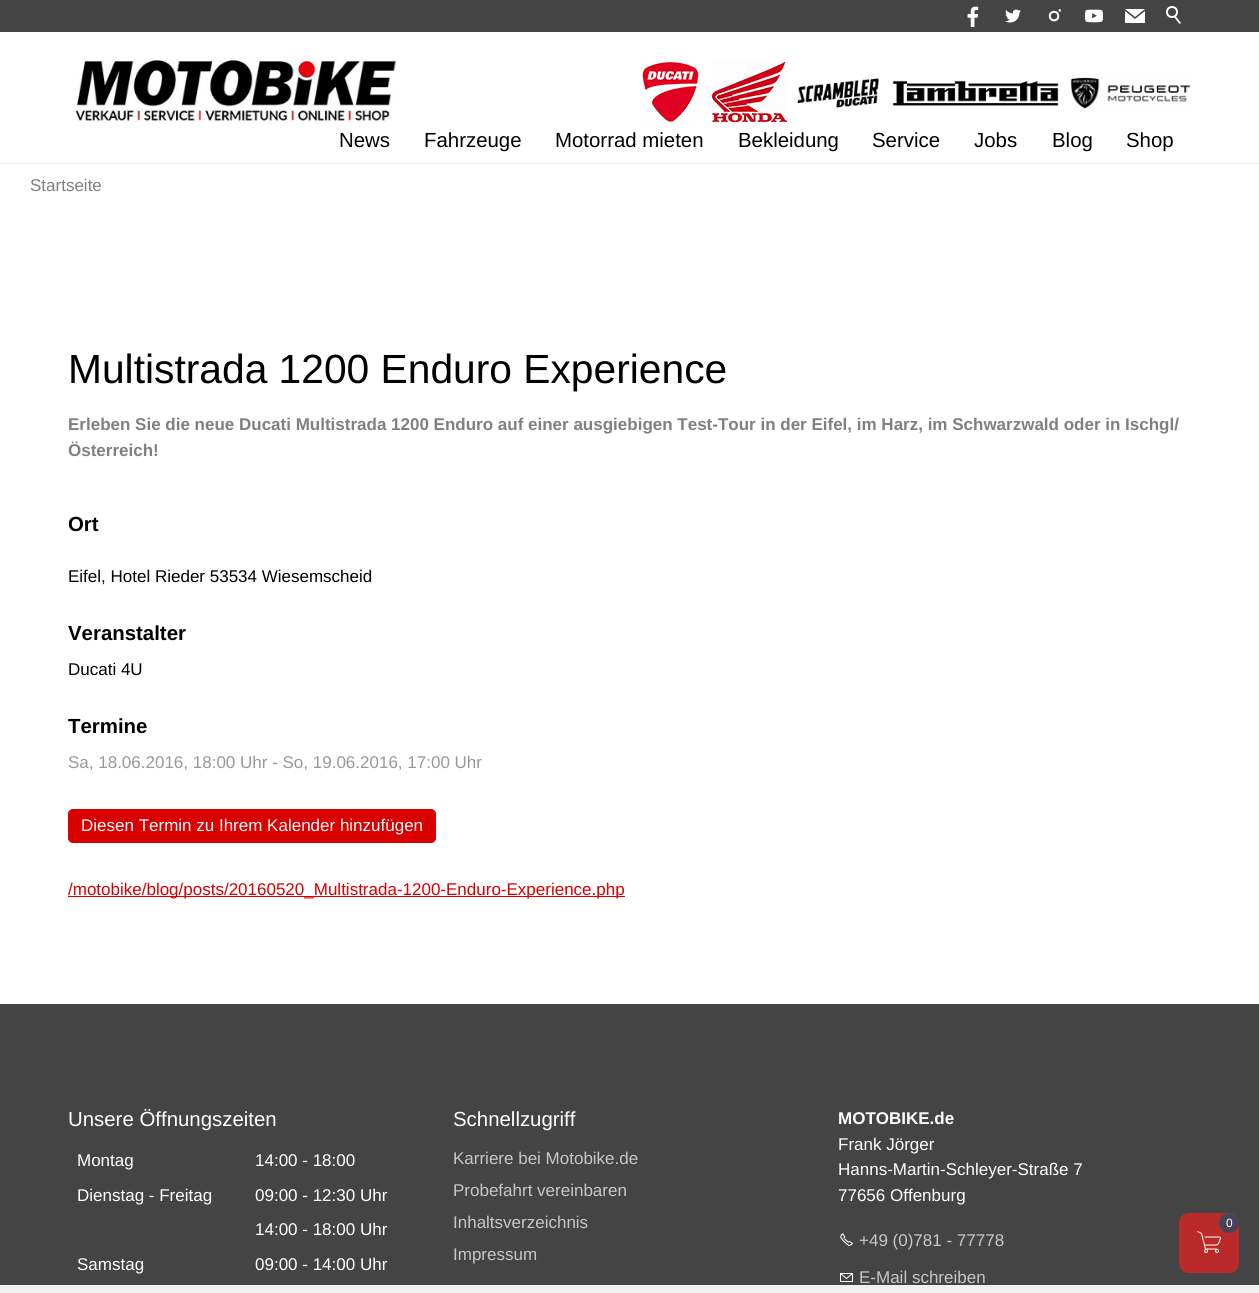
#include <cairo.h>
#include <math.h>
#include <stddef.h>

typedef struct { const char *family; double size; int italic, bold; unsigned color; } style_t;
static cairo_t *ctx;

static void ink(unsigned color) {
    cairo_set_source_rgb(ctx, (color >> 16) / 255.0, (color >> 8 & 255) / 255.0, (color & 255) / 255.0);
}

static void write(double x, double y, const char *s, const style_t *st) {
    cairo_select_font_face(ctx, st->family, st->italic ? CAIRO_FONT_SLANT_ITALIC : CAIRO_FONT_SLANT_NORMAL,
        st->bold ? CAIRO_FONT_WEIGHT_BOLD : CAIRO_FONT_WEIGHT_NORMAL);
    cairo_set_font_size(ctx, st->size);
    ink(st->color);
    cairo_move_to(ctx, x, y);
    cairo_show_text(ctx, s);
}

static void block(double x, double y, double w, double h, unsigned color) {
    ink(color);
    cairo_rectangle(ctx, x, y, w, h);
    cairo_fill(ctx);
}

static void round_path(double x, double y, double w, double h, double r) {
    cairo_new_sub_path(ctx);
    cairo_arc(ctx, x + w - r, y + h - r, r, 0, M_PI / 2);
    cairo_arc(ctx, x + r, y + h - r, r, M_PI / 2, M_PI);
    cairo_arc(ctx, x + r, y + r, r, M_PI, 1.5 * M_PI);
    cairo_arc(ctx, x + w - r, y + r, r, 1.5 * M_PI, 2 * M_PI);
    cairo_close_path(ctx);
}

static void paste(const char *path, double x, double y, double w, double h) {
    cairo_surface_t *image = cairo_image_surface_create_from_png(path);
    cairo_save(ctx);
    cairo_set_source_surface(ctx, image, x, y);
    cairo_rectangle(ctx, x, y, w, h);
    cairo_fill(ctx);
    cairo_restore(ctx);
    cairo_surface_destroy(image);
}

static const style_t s1 = {"Liberation Sans", 20.4, 0, 0, 0x000000};
static const style_t s2 = {"Liberation Sans", 17, 0, 0, 0x808080};
static const style_t s3 = {"Liberation Sans", 40.75, 0, 0, 0x000000};
static const style_t s4 = {"Liberation Sans", 17, 0, 1, 0x808080};
static const style_t s5 = {"Liberation Sans", 20.4, 0, 1, 0x000000};
static const style_t s6 = {"Liberation Sans", 17, 0, 0, 0x000000};
static const style_t s7 = {"Liberation Sans", 17, 0, 0, 0x999999};
static const style_t s8 = {"Liberation Sans", 17, 0, 0, 0xffffff};
static const style_t s9 = {"Liberation Sans", 17, 0, 0, 0xd80000};
static const style_t s10 = {"Liberation Sans", 20.4, 0, 0, 0xffffff};
static const style_t s11 = {"Liberation Sans", 17, 0, 0, 0xc7c7c7};
static const style_t s12 = {"Liberation Sans", 17, 0, 1, 0xffffff};
static const style_t s13 = {"Liberation Sans", 12, 0, 0, 0xffffff};

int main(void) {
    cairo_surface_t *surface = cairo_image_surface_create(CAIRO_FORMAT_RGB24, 1259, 1293);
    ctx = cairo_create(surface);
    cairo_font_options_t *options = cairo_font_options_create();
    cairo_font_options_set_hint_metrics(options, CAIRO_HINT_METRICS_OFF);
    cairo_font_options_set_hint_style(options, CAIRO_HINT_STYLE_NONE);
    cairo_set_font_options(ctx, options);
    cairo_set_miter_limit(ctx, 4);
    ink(0xffffff);
    cairo_paint(ctx);
    block(0, 0, 1259, 32, 0x444444);
    paste("pic1.png", 967, 6, 12, 21);
    paste("pic2.png", 1005, 9, 16, 14);
    paste("pic3.png", 1048, 9, 13, 13);
    paste("pic4.png", 1085, 9, 18, 14);
    paste("pic5.png", 1125, 9, 20, 14);
    cairo_arc(ctx, 1172, 12, 5, 0, 2 * M_PI);
    ink(0xffffff);
    cairo_stroke(ctx);
    cairo_new_path(ctx);
    cairo_move_to(ctx, 1175.5, 16);
    cairo_line_to(ctx, 1181, 23);
    cairo_line_to(ctx, 1179.5, 24);
    cairo_line_to(ctx, 1174, 17);
    cairo_close_path(ctx);
    cairo_fill(ctx);
    block(0, 163, 1259, 1, 0xf0f0f0);
    paste("pic6.png", 75, 56, 322, 67);
    paste("pic7.png", 642, 62, 57, 60);
    paste("pic8.png", 712, 62, 75, 60);
    paste("pic9.png", 797, 78, 82, 30);
    paste("pic10.png", 892, 80, 167, 26);
    paste("pic11.png", 1070, 77, 121, 32);
    write(339, 147, "News", &s1);
    write(424, 147, "Fahrzeuge", &s1);
    write(555, 147, "Motorrad mieten", &s1);
    write(738, 147, "Bekleidung", &s1);
    write(872, 147, "Service", &s1);
    write(974, 147, "Jobs", &s1);
    write(1052, 147, "Blog", &s1);
    write(1126, 147, "Shop", &s1);
    write(30, 191, "Startseite", &s2);
    write(68, 383, "Multistrada 1200 Enduro Experience", &s3);
    write(68, 430, "Erleben Sie die neue Ducati Multistrada 1200 Enduro auf einer ausgiebigen Test-Tour in der Eifel, im Harz, im Schwarzwald oder in Ischgl/", &s4);
    write(68, 456, "Österreich!", &s4);
    write(68, 531, "Ort", &s5);
    write(68, 582, "Eifel, Hotel Rieder 53534 Wiesemscheid", &s6);
    write(68, 640, "Veranstalter", &s5);
    write(68, 675, "Ducati 4U", &s6);
    write(68, 733, "Termine", &s5);
    write(68, 768, "Sa, 18.06.2016, 18:00 Uhr - So, 19.06.2016, 17:00 Uhr", &s7);
    ink(0xd80000);
    round_path(68.5, 809.5, 367, 33, 4.5);
    cairo_fill_preserve(ctx);
    cairo_set_line_width(ctx, 1);
    cairo_stroke(ctx);
    write(81, 831, "Diesen Termin zu Ihrem Kalender hinzufügen", &s8);
    block(68, 896, 557, 1, 0xd80000);
    write(68, 895, "/motobike/blog/posts/20160520_Multistrada-1200-Enduro-Experience.php", &s9);
    block(0, 1004, 1259, 281, 0x444444);
    write(68, 1126, "Unsere Öffnungszeiten", &s10);
    write(77, 1166, "Montag", &s8);
    write(255, 1166, "14:00 - 18:00", &s8);
    write(77, 1201, "Dienstag - Freitag", &s8);
    write(255, 1201, "09:00 - 12:30 Uhr", &s8);
    write(255, 1235, "14:00 - 18:00 Uhr", &s8);
    write(77, 1270, "Samstag", &s8);
    write(255, 1270, "09:00 - 14:00 Uhr", &s8);
    write(453, 1126, "Schnellzugriff", &s10);
    write(453, 1164, "Karriere bei Motobike.de", &s11);
    write(453, 1196, "Probefahrt vereinbaren", &s11);
    write(453, 1228, "Inhaltsverzeichnis", &s11);
    write(453, 1260, "Impressum", &s11);
    write(838, 1124, "MOTOBIKE.de", &s12);
    write(838, 1150, "Frank Jörger", &s8);
    write(838, 1175, "Hanns-Martin-Schleyer-Straße 7", &s8);
    write(838, 1201, "77656 Offenburg", &s8);
    paste("pic12.png", 840, 1233, 13, 13);
    write(859, 1246, "+49 (0)781 - 77778", &s11);
    paste("pic13.png", 840, 1273, 13, 9);
    write(859, 1283, "E-Mail schreiben", &s11);
    ink(0xbb2a2a);
    round_path(1179, 1213, 60, 60, 10);
    cairo_fill(ctx);
    paste("pic14.png", 1197, 1231, 24, 22);
    ink(0x46435b);
    cairo_arc(ctx, 1229, 1223, 10, 0, 2 * M_PI);
    cairo_fill(ctx);
    write(1226, 1227, "0", &s13);
    block(0, 1285, 1259, 8, 0xf0f0f0);
    cairo_surface_write_to_png(surface, "screenshot.png");
    cairo_font_options_destroy(options);
    cairo_destroy(ctx);
    cairo_surface_destroy(surface);
    return 0;
}
